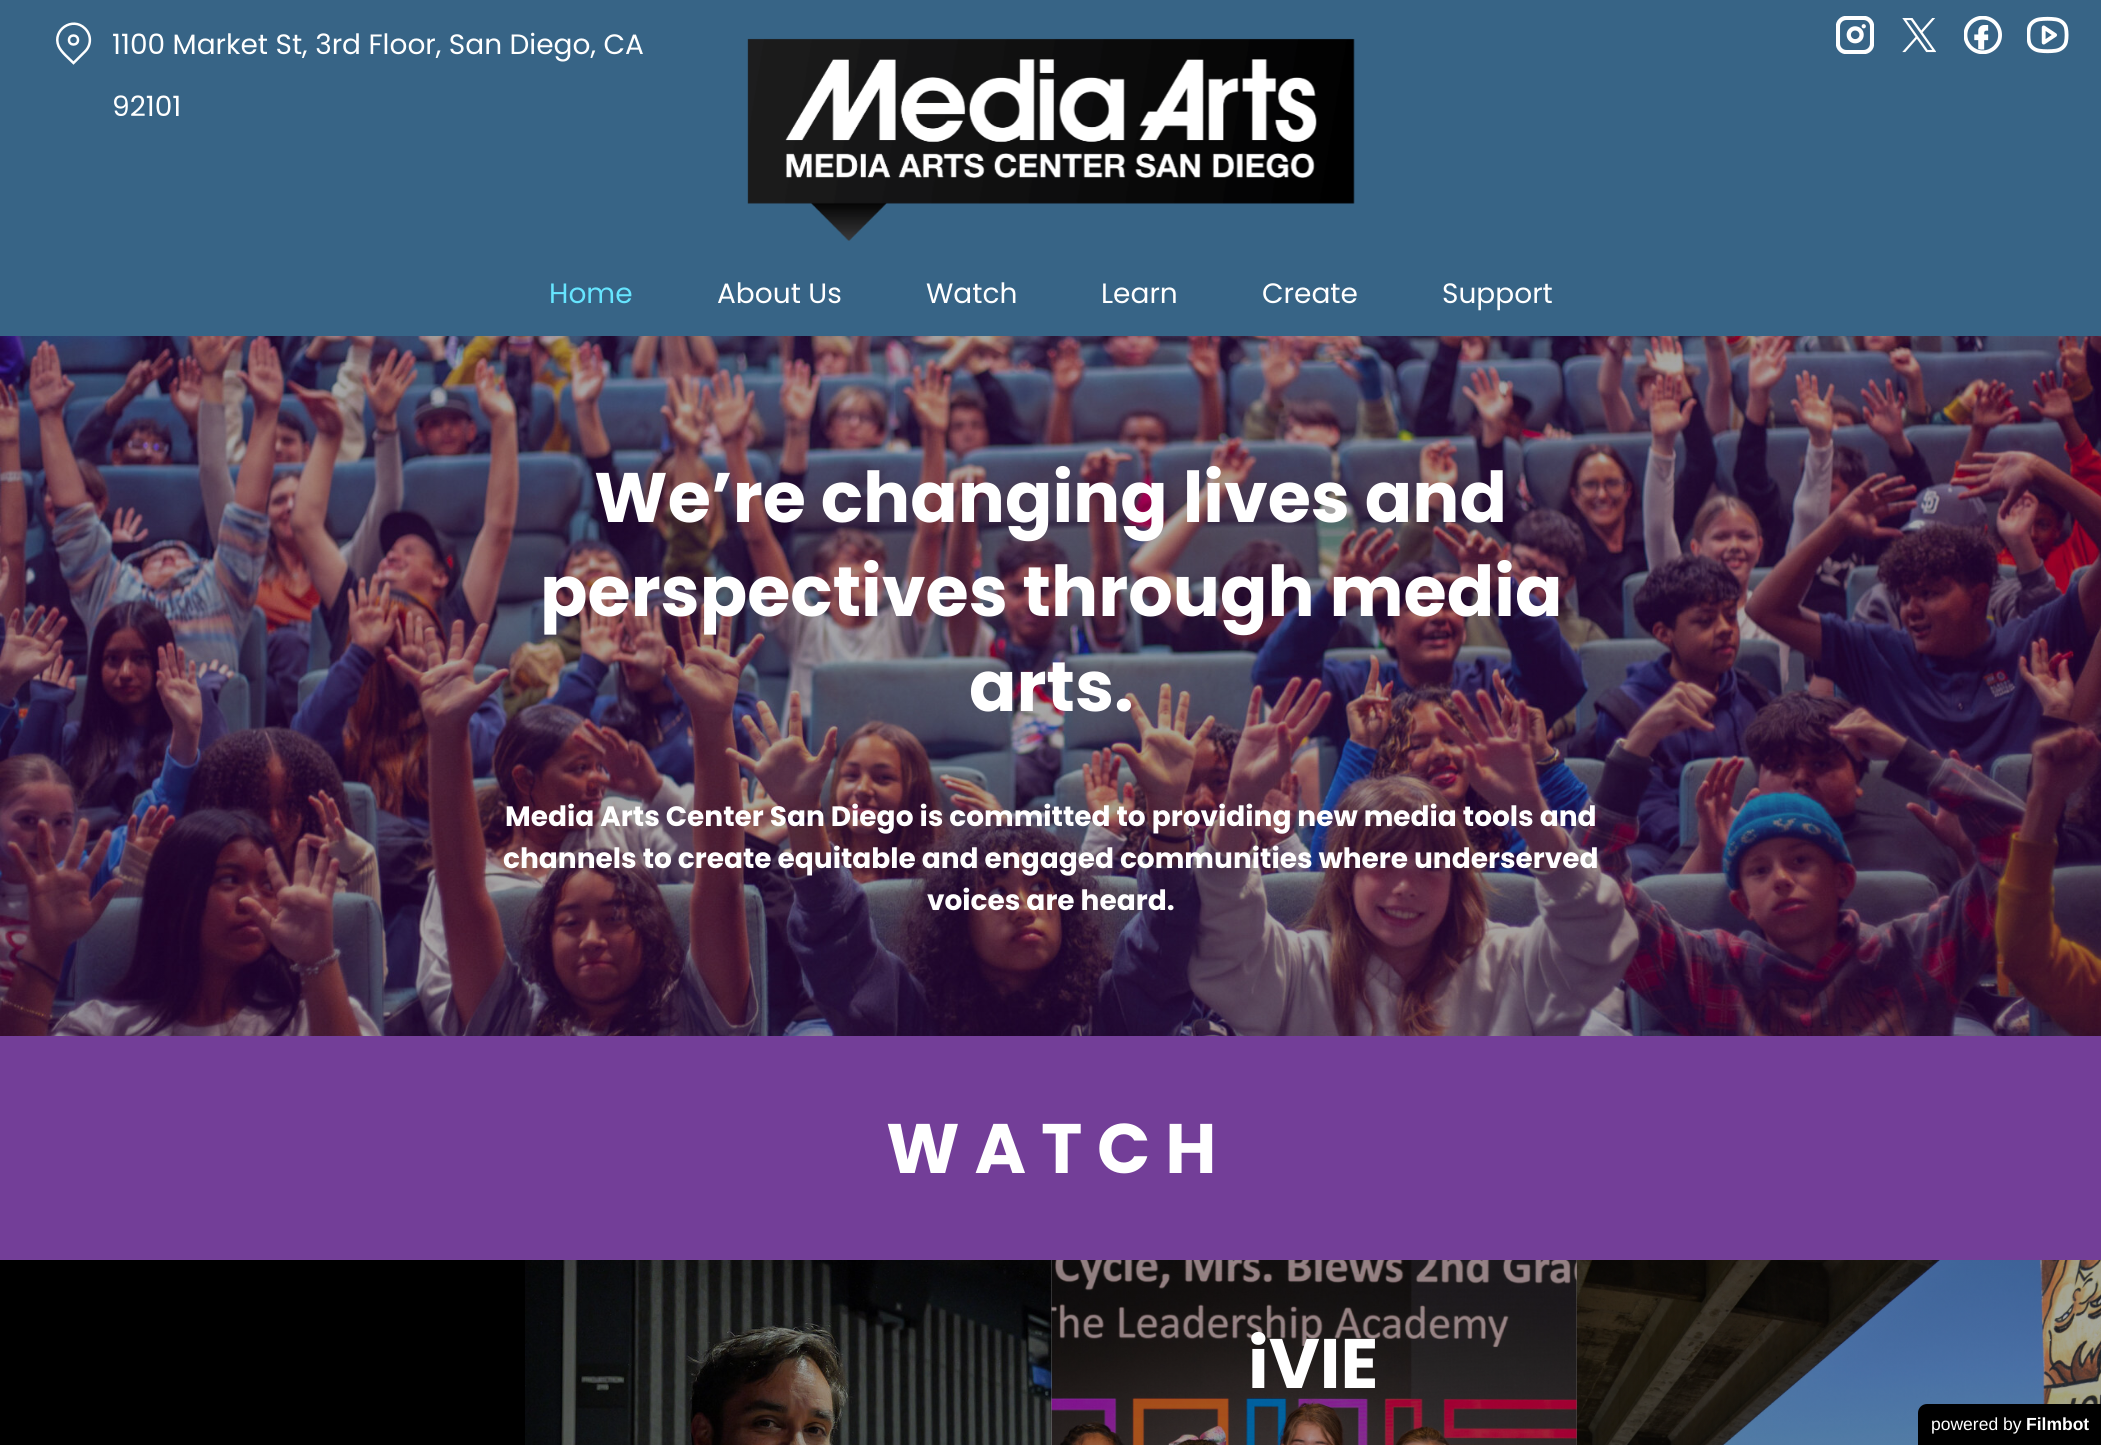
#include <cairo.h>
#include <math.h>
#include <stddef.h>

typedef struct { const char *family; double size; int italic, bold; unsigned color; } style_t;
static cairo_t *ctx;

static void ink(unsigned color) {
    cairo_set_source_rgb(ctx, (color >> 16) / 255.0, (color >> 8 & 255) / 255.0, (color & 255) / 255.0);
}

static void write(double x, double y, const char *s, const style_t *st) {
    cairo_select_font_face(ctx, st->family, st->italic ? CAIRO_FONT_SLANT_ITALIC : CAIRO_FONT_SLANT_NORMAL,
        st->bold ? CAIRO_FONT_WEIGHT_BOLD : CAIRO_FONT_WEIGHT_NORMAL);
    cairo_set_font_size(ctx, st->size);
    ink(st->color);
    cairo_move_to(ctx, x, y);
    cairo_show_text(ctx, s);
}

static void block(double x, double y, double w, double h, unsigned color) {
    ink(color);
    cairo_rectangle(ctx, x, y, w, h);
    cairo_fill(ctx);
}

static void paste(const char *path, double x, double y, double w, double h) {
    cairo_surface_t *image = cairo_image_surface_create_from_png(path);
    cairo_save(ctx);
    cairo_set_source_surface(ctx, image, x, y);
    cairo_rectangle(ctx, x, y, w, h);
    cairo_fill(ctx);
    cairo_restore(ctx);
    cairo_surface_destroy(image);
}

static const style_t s1 = {"Poppins", 28, 0, 0, 0xffffff};
static const style_t s2 = {"Poppins", 28, 0, 0, 0x66e5ff};
static const style_t s3 = {"Poppins", 70, 0, 1, 0xffffff};
static const style_t s4 = {"Poppins", 28, 0, 1, 0xffffff};
static const style_t s5 = {"Liberation Sans", 17.5, 0, 0, 0xffffff};
static const style_t s6 = {"Liberation Sans", 17.5, 0, 1, 0xffffff};

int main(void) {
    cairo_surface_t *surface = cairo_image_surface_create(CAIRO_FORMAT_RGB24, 2101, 1445);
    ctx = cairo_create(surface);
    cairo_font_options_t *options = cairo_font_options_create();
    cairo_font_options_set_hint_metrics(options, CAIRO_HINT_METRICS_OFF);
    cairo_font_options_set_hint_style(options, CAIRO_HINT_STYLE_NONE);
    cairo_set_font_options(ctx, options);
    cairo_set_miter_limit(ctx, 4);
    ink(0xffffff);
    cairo_paint(ctx);
    block(0, 0, 2101, 336, 0x376486);
    cairo_new_path(ctx);
    cairo_move_to(ctx, 85, 28.5);
    cairo_curve_to(ctx, 91.5, 35, 91.5, 45, 85, 51.5);
    cairo_line_to(ctx, 73.5, 63);
    cairo_curve_to(ctx, 69, 58.5, 61, 52, 58.5, 46);
    cairo_curve_to(ctx, 52, 30, 72.5, 16, 85, 28.5);
    cairo_close_path(ctx);
    ink(0xffffff);
    cairo_set_line_width(ctx, 2.5);
    cairo_stroke(ctx);
    cairo_arc(ctx, 73.5, 40, 4.5, 0, 2 * M_PI);
    cairo_stroke(ctx);
    write(112, 54, "1100 Market St, 3rd Floor, San Diego, CA", &s1);
    write(112, 116, "92101", &s1);
    paste("pic1.png", 747, 38, 608, 203);
    paste("pic2.png", 1836, 16, 38, 38);
    paste("pic3.png", 1902, 18, 34, 35);
    paste("pic4.png", 1964, 16, 38, 38);
    paste("pic5.png", 2027, 16, 42, 38);
    write(549, 303, "Home", &s2);
    write(717, 303, "About Us", &s1);
    write(926, 303, "Watch", &s1);
    write(1101, 303, "Learn", &s1);
    write(1262, 303, "Create", &s1);
    write(1442, 303, "Support", &s1);
    paste("pic6.png", 0, 336, 2101, 700);
    write(594, 522, "We’re changing lives and", &s3);
    write(540, 616, "perspectives through media", &s3);
    write(969, 711, "arts.", &s3);
    write(505, 826, "Media Arts Center San Diego is committed to providing new media tools and", &s4);
    write(503, 868, "channels to create equitable and engaged communities where underserved", &s4);
    write(927, 910, "voices are heard.", &s4);
    block(0, 1036, 2101, 224, 0x733e98);
    write(886, 1173, "W A T C H", &s3);
    block(0, 1260, 525, 185, 0x000000);
    paste("pic7.png", 525, 1260, 527, 185);
    paste("pic8.png", 1051, 1260, 526, 185);
    write(1248, 1388, "iVIE", &s3);
    paste("pic9.png", 1576, 1260, 525, 185);
    ink(0x000000);
    cairo_new_path(ctx);
    cairo_move_to(ctx, 1927, 1404);
    cairo_line_to(ctx, 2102, 1404);
    cairo_line_to(ctx, 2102, 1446);
    cairo_line_to(ctx, 1918, 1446);
    cairo_line_to(ctx, 1918, 1413);
    cairo_curve_to(ctx, 1918, 1408, 1922, 1404, 1927, 1404);
    cairo_close_path(ctx);
    cairo_fill(ctx);
    write(1931, 1430, "powered by", &s5);
    write(2026, 1430, "Filmbot", &s6);
    cairo_surface_write_to_png(surface, "screenshot.png");
    cairo_font_options_destroy(options);
    cairo_destroy(ctx);
    cairo_surface_destroy(surface);
    return 0;
}
